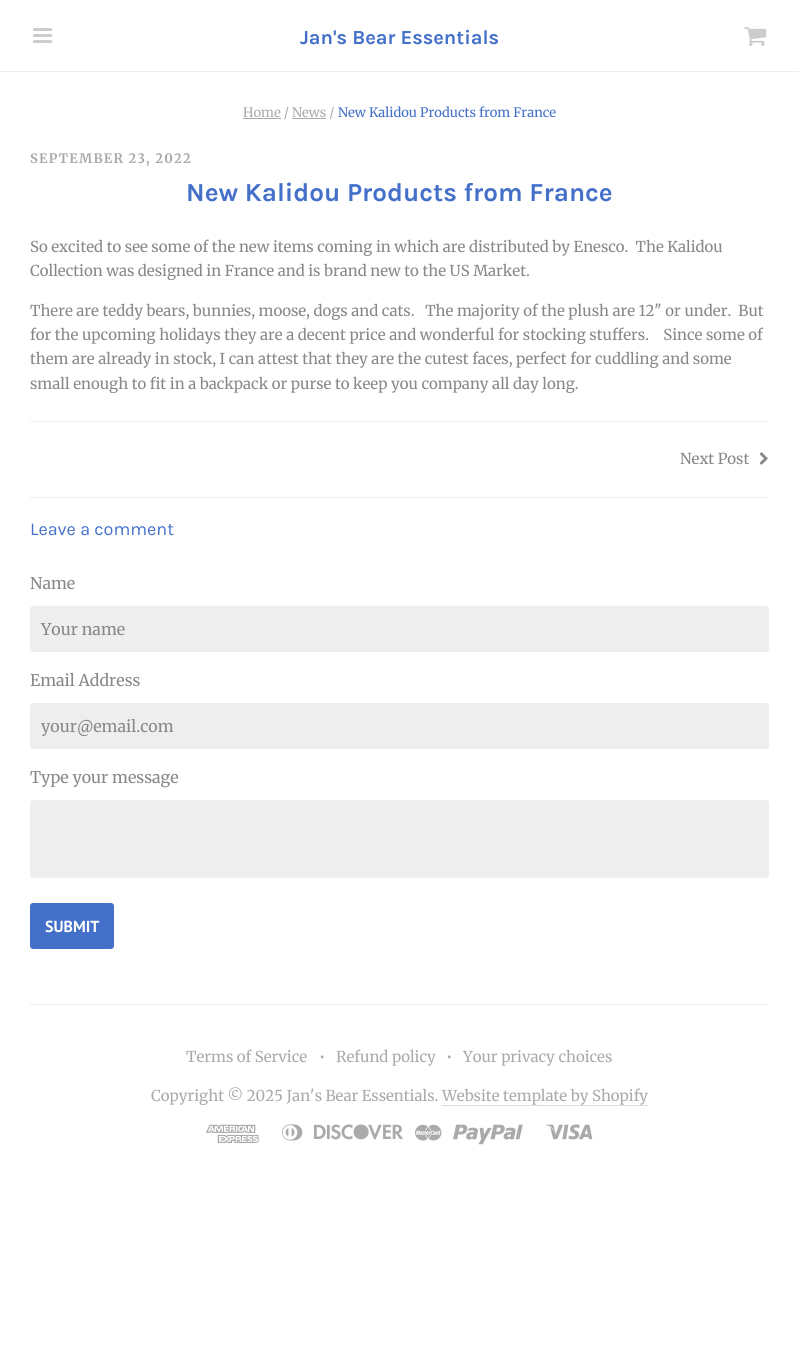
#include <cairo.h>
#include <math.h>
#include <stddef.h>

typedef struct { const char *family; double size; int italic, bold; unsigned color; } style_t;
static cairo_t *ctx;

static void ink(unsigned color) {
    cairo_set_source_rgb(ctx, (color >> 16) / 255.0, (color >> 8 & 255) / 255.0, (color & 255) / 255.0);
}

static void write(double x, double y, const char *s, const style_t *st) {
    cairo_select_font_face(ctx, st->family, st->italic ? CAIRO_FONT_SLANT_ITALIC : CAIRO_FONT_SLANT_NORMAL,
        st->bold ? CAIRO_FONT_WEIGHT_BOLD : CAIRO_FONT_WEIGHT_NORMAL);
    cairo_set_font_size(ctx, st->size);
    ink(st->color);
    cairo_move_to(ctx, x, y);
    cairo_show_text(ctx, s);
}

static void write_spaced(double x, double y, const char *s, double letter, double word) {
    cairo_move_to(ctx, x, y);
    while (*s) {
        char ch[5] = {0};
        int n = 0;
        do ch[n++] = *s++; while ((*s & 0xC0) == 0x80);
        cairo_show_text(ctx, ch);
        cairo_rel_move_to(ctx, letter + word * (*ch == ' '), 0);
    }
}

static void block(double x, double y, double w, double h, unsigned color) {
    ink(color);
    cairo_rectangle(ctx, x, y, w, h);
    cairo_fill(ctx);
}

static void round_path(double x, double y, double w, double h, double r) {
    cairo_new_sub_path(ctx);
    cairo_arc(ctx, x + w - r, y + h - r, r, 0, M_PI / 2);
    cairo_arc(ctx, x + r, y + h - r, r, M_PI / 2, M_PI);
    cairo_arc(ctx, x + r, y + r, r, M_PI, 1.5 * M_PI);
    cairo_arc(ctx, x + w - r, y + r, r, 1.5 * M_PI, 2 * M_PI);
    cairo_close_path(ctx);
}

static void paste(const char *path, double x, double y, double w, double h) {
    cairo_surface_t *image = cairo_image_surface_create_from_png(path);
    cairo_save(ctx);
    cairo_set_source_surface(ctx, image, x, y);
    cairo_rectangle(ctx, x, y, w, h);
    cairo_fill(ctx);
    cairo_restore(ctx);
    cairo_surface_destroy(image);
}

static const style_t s1 = {"Karla", 20, 0, 1, 0x4470ca};
static const style_t s2 = {"Merriweather", 13, 0, 0, 0xaaaaaa};
static const style_t s3 = {"Merriweather", 13, 0, 0, 0x4470ca};
static const style_t s4 = {"Karla", 26, 0, 1, 0x4470ca};
static const style_t s5 = {"Merriweather", 15, 0, 0, 0x888888};
static const style_t s6 = {"Karla", 18, 0, 0, 0x4470ca};
static const style_t s7 = {"Merriweather", 16, 0, 0, 0x888888};
static const style_t s8 = {"PT Sans", 16, 0, 1, 0xffffff};
static const style_t s9 = {"Merriweather", 15, 0, 0, 0xaaaaaa};

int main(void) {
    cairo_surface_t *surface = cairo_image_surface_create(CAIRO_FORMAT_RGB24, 799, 1366);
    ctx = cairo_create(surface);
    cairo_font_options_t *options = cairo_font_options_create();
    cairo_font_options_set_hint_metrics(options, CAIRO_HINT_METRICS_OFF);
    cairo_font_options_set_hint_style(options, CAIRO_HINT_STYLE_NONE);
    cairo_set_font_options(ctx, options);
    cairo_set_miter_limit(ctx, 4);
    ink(0xffffff);
    cairo_paint(ctx);
    ink(0xcccccc);
    round_path(33, 28, 19, 3, 1);
    cairo_fill(ctx);
    round_path(33, 34, 19, 3, 1);
    cairo_fill(ctx);
    round_path(33, 40, 19, 3, 1);
    cairo_fill(ctx);
    write(300, 44, "Jan's Bear Essentials", &s1);
    paste("pic1.png", 744, 27, 23, 19);
    block(0, 71, 799, 1, 0xeeeeee);
    block(243, 118, 38, 1, 0xaaaaaa);
    write(243, 117, "Home / News /", &s2);
    write(338, 117, "New Kalidou Products from France", &s3);
    block(292, 118, 34, 1, 0xaaaaaa);
    block(30, 421, 739, 1, 0xeeeeee);
    cairo_select_font_face(ctx, "Merriweather", CAIRO_FONT_SLANT_NORMAL, CAIRO_FONT_WEIGHT_BOLD);
    ink(0xaaaaaa);
    write_spaced(30, 163, "SEPTEMBER 23, 2022", 1.25, 0);
    write(186, 201, "New Kalidou Products from France", &s4);
    write(30, 252, "So excited to see some of the new items coming in which are distributed by Enesco.  The Kalidou", &s5);
    write(30, 276, "Collection was designed in France and is brand new to the US Market.", &s5);
    write(30, 316, "There are teddy bears, bunnies, moose, dogs and cats.   The majority of the plush are 12\" or under.  But", &s5);
    write(30, 340, "for the upcoming holidays they are a decent price and wonderful for stocking stuffers.    Since some of", &s5);
    write(30, 364, "them are already in stock, I can attest that they are the cutest faces, perfect for cuddling and some", &s5);
    write(30, 389, "small enough to fit in a backpack or purse to keep you company all day long.", &s5);
    write(680, 464, "Next Post", &s5);
    paste("pic2.png", 759, 452, 9, 13);
    block(30, 497, 739, 1, 0xeeeeee);
    write(30, 535, "Leave a comment", &s6);
    write(30, 589, "Name", &s7);
    ink(0xeeeeee);
    round_path(30, 606, 739, 46, 3);
    cairo_fill(ctx);
    write(41, 635, "Your name", &s7);
    write(30, 686, "Email Address", &s7);
    ink(0xeeeeee);
    round_path(30, 703, 739, 46, 3);
    cairo_fill(ctx);
    write(41, 732, "your@email.com", &s7);
    write(30, 783, "Type your message", &s7);
    ink(0xeeeeee);
    round_path(30, 800, 739, 78, 3);
    cairo_fill(ctx);
    ink(0x4470ca);
    round_path(30, 903, 84, 46, 3);
    cairo_fill(ctx);
    write(45, 932, "SUBMIT", &s8);
    block(30, 1004, 739, 1, 0xeeeeee);
    write(186, 1062, "Terms of Service", &s9);
    write(319, 1062, "•", &s9);
    write(336, 1062, "Refund policy", &s9);
    write(446, 1062, "•", &s9);
    write(463, 1062, "Your privacy choices", &s9);
    write(151, 1101, "Copyright © 2025 Jan's Bear Essentials. Website template by Shopify", &s9);
    block(442, 1105, 206, 1, 0xdddddd);
    paste("pic3.png", 206, 1124, 53, 19);
    paste("pic4.png", 282, 1124, 21, 17);
    paste("pic5.png", 314, 1124, 89, 16);
    paste("pic6.png", 415, 1124, 27, 17);
    paste("pic7.png", 453, 1124, 70, 21);
    paste("pic8.png", 546, 1124, 47, 16);
    cairo_surface_write_to_png(surface, "screenshot.png");
    cairo_font_options_destroy(options);
    cairo_destroy(ctx);
    cairo_surface_destroy(surface);
    return 0;
}
